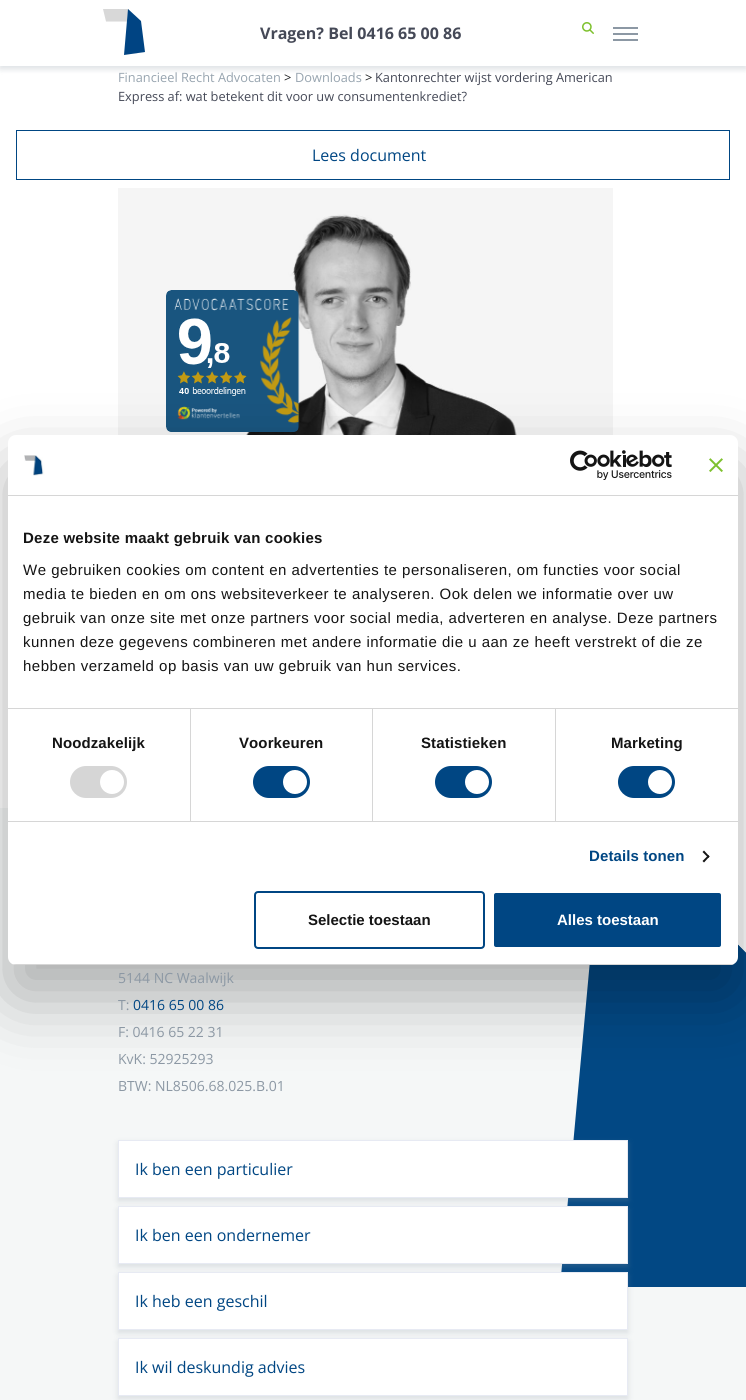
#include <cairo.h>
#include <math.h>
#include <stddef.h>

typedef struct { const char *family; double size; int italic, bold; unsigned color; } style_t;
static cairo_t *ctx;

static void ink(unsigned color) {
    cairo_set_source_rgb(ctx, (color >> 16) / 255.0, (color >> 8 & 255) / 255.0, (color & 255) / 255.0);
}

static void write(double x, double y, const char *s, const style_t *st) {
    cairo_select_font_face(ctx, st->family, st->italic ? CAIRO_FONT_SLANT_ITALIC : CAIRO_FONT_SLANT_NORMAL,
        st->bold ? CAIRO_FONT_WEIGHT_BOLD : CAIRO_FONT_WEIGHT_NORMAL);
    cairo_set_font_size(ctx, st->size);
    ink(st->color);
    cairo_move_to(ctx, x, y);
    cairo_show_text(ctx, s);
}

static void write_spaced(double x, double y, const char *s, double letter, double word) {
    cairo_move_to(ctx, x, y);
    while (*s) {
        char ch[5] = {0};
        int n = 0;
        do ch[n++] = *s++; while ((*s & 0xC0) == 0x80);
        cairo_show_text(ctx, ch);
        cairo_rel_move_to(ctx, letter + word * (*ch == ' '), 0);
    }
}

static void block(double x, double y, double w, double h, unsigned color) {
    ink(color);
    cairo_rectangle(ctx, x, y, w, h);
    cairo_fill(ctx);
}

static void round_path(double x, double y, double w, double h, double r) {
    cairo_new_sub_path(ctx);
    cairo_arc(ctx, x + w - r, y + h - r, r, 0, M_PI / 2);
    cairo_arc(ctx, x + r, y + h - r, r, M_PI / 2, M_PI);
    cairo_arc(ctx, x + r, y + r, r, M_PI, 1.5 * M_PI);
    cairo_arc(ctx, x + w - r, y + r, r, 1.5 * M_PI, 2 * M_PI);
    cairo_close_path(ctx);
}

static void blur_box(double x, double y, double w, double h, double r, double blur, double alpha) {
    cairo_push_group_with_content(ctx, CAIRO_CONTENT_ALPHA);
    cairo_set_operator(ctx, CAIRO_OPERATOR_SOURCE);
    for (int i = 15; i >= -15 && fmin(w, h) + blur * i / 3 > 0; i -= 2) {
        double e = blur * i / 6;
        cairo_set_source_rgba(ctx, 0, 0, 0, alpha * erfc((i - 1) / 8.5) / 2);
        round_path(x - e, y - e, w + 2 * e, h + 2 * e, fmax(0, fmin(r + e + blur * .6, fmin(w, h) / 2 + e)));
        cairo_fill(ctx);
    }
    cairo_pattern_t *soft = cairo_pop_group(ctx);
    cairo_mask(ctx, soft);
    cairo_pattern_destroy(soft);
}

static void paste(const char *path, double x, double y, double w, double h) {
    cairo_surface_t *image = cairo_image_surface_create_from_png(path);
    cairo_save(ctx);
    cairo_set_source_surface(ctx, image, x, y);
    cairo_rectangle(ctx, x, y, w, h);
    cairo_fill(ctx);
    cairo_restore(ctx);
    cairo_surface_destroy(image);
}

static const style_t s1 = {"Open Sans", 16, 0, 1, 0x454957};
static const style_t s2 = {"Open Sans", 12.8, 0, 0, 0x97a4af};
static const style_t s3 = {"Open Sans", 12.8, 0, 0, 0x1e2022};
static const style_t s4 = {"Open Sans", 12.8, 0, 0, 0x454957};
static const style_t s5 = {"Open Sans", 16, 0, 0, 0x004683};
static const style_t s6 = {"Liberation Sans", 15, 0, 1, 0x141414};
static const style_t s7 = {"Liberation Sans", 15, 0, 1, 0xffffff};
static const style_t s8 = {"Open Sans", 14, 0, 0, 0x8c98a4};
static const style_t s9 = {"Open Sans", 14, 0, 0, 0x004683};

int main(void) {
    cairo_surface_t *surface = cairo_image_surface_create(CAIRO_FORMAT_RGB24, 746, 1400);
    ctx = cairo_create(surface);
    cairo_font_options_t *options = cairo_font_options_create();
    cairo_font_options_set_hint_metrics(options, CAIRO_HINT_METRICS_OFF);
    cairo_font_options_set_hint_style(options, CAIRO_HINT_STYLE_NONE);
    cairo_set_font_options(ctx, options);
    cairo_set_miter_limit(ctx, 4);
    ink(0xffffff);
    cairo_paint(ctx);
    ink(0x97a4af);
    blur_box(0, 1, 746, 66, 0, 5, 0.1);
    block(0, 0, 746, 66, 0xffffff);
    cairo_save(ctx);
    cairo_rectangle(ctx, 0, 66, 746, 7);
    cairo_clip(ctx);
    ink(0x8c98a4);
    blur_box(0, 3, 746, 66, 0, 3, 0.25);
    cairo_restore(ctx);
    ink(0xd8d8d8);
    cairo_set_fill_rule(ctx, CAIRO_FILL_RULE_EVEN_ODD);
    cairo_new_path(ctx);
    cairo_move_to(ctx, 103, 9);
    cairo_line_to(ctx, 106, 21.5);
    cairo_line_to(ctx, 127, 21.5);
    cairo_line_to(ctx, 128.5, 9);
    cairo_close_path(ctx);
    cairo_fill(ctx);
    ink(0x004483);
    cairo_new_path(ctx);
    cairo_move_to(ctx, 124, 55);
    cairo_line_to(ctx, 145, 52);
    cairo_line_to(ctx, 141, 21);
    cairo_line_to(ctx, 128, 9);
    cairo_close_path(ctx);
    cairo_fill(ctx);
    write(260, 39, "Vragen? Bel 0416 65 00 86", &s1);
    paste("pic1.png", 582, 22, 12, 12);
    block(613, 27, 25, 2, 0x8c98a4);
    block(613, 33, 25, 2, 0x8c98a4);
    block(613, 39, 25, 2, 0x8c98a4);
    write(118, 82, "Financieel Recht Advocaten", &s2);
    write(284, 82, ">", &s3);
    write(295, 82, "Downloads", &s2);
    write(365, 82, ">", &s3);
    write(375, 82, "Kantonrechter wijst vordering American", &s4);
    write(118, 101, "Express af: wat betekent dit voor uw consumentenkrediet?", &s4);
    cairo_rectangle(ctx, 16.5, 130.5, 713, 49);
    ink(0x004683);
    cairo_set_line_width(ctx, 1);
    cairo_stroke(ctx);
    write(312, 161, "Lees document", &s5);
    paste("pic2.png", 118, 188, 495, 247);
    paste("pic3.png", 166, 290, 134, 142);
    block(0, 808, 746, 592, 0xf5f7f7);
    ink(0x024884);
    cairo_new_path(ctx);
    cairo_move_to(ctx, 604, 808);
    cairo_line_to(ctx, 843, 1051);
    cairo_line_to(ctx, 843, 1287);
    cairo_line_to(ctx, 560, 1287);
    cairo_close_path(ctx);
    cairo_fill(ctx);
    ink(0xffffff);
    cairo_new_path(ctx);
    cairo_move_to(ctx, 605, 808);
    cairo_line_to(ctx, 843, 808);
    cairo_line_to(ctx, 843, 1052);
    cairo_close_path(ctx);
    cairo_fill(ctx);
    ink(0x000000);
    blur_box(8, 467, 730, 530, 8, 34, 0.3);
    ink(0xffffff);
    round_path(8, 435, 730, 530, 8);
    cairo_fill(ctx);
    block(8, 495, 730, 1, 0xd6d6d6);
    paste("pic4.png", 24, 455, 21, 21);
    paste("pic5.png", 570, 450, 102, 30);
    paste("pic6.png", 709, 458, 14, 14);
    block(8, 708, 730, 1, 0xd6d6d6);
    cairo_select_font_face(ctx, "Liberation Sans", CAIRO_FONT_SLANT_NORMAL, CAIRO_FONT_WEIGHT_BOLD);
    cairo_set_font_size(ctx, 15);
    ink(0x141414);
    write_spaced(23, 543, "Deze website maakt gebruik van cookies", 0.25, 0);
    cairo_select_font_face(ctx, "Liberation Sans", CAIRO_FONT_SLANT_NORMAL, CAIRO_FONT_WEIGHT_NORMAL);
    write_spaced(23, 575, "We gebruiken cookies om content en advertenties te personaliseren, om functies voor social", 0.5, 0);
    write_spaced(23, 599, "media te bieden en om ons websiteverkeer te analyseren. Ook delen we informatie over uw", 0.5, 0);
    write_spaced(23, 623, "gebruik van onze site met onze partners voor social media, adverteren en analyse. Deze partners", 0.5, 0);
    write_spaced(23, 647, "kunnen deze gegevens combineren met andere informatie die u aan ze heeft verstrekt of die ze", 0.5, 0);
    write_spaced(23, 671, "hebben verzameld op basis van uw gebruik van hun services.", 0.5, 0);
    block(8, 821, 730, 1, 0xd6d6d6);
    block(190, 709, 1, 112, 0xd6d6d6);
    cairo_select_font_face(ctx, "Liberation Sans", CAIRO_FONT_SLANT_NORMAL, CAIRO_FONT_WEIGHT_BOLD);
    ink(0x141414);
    write_spaced(52, 748, "Noodzakelijk", 0.1, 0);
    ink(0xd6d6d6);
    round_path(70, 766, 57, 32, 16);
    cairo_fill(ctx);
    ink(0xffffff);
    cairo_arc(ctx, 112, 782, 12, 0, 2 * M_PI);
    cairo_fill(ctx);
    block(372, 709, 1, 112, 0xd6d6d6);
    ink(0x141414);
    write_spaced(239, 748, "Voorkeuren", 0.1, 0);
    ink(0x004683);
    round_path(253, 766, 57, 32, 16);
    cairo_fill(ctx);
    ink(0xffffff);
    cairo_arc(ctx, 295, 782, 12, 0, 2 * M_PI);
    cairo_fill(ctx);
    block(555, 709, 1, 112, 0xd6d6d6);
    ink(0x141414);
    write_spaced(421, 748, "Statistieken", 0.1, 0);
    ink(0x004683);
    round_path(435, 766, 57, 32, 16);
    cairo_fill(ctx);
    ink(0xffffff);
    cairo_arc(ctx, 477, 782, 12, 0, 2 * M_PI);
    cairo_fill(ctx);
    ink(0x141414);
    write_spaced(611, 748, "Marketing", 0.1, 0);
    ink(0x004683);
    round_path(618, 766, 57, 32, 16);
    cairo_fill(ctx);
    ink(0xffffff);
    cairo_arc(ctx, 660, 782, 12, 0, 2 * M_PI);
    cairo_fill(ctx);
    ink(0x004683);
    write_spaced(589, 861, "Details tonen", 0.1, 0);
    ink(0x141414);
    cairo_set_fill_rule(ctx, CAIRO_FILL_RULE_WINDING);
    cairo_new_path(ctx);
    cairo_move_to(ctx, 704, 850.5);
    cairo_line_to(ctx, 709.5, 856.5);
    cairo_line_to(ctx, 708.5, 858);
    cairo_line_to(ctx, 702.5, 852);
    cairo_close_path(ctx);
    cairo_fill(ctx);
    cairo_new_path(ctx);
    cairo_move_to(ctx, 708.5, 855);
    cairo_line_to(ctx, 709.5, 856.5);
    cairo_line_to(ctx, 704, 862.5);
    cairo_line_to(ctx, 702.5, 861);
    cairo_close_path(ctx);
    cairo_fill(ctx);
    cairo_save(ctx);
    round_path(8, 435, 730, 530, 8);
    cairo_clip(ctx);
    block(8, 964, 730, 1, 0xd6d6d6);
    cairo_restore(ctx);
    round_path(255, 892, 229, 56, 3);
    ink(0x004683);
    cairo_set_line_width(ctx, 2);
    cairo_stroke(ctx);
    write(308, 925, "Selectie toestaan", &s6);
    ink(0x004683);
    round_path(493, 892, 229, 56, 3);
    cairo_fill_preserve(ctx);
    ink(0xffffff);
    cairo_stroke(ctx);
    write(557, 925, "Alles toestaan", &s7);
    write(118, 983, "5144 NC Waalwijk", &s8);
    write(118, 1010, "T:", &s8);
    write(133, 1010, "0416 65 00 86", &s9);
    write(118, 1037, "F: 0416 65 22 31", &s8);
    write(118, 1064, "KvK: 52925293", &s8);
    write(118, 1091, "BTW: NL8506.68.025.B.01", &s8);
    ink(0x8c98a4);
    blur_box(118, 1143, 510, 58, 0, 3, 0.25);
    ink(0xffffff);
    cairo_rectangle(ctx, 118.5, 1140.5, 509, 57);
    cairo_fill_preserve(ctx);
    ink(0xe7eaf3);
    cairo_set_line_width(ctx, 1);
    cairo_stroke(ctx);
    write(135, 1175, "Ik ben een particulier", &s5);
    ink(0x8c98a4);
    blur_box(118, 1209, 510, 58, 0, 3, 0.25);
    ink(0xffffff);
    cairo_rectangle(ctx, 118.5, 1206.5, 509, 57);
    cairo_fill_preserve(ctx);
    ink(0xe7eaf3);
    cairo_stroke(ctx);
    write(135, 1241, "Ik ben een ondernemer", &s5);
    ink(0x8c98a4);
    blur_box(118, 1275, 510, 58, 0, 3, 0.25);
    ink(0xffffff);
    cairo_rectangle(ctx, 118.5, 1272.5, 509, 57);
    cairo_fill_preserve(ctx);
    ink(0xe7eaf3);
    cairo_stroke(ctx);
    write(135, 1307, "Ik heb een geschil", &s5);
    ink(0x8c98a4);
    blur_box(118, 1341, 510, 58, 0, 3, 0.25);
    ink(0xffffff);
    cairo_rectangle(ctx, 118.5, 1338.5, 509, 57);
    cairo_fill_preserve(ctx);
    ink(0xe7eaf3);
    cairo_stroke(ctx);
    write(135, 1373, "Ik wil deskundig advies", &s5);
    cairo_surface_write_to_png(surface, "screenshot.png");
    cairo_font_options_destroy(options);
    cairo_destroy(ctx);
    cairo_surface_destroy(surface);
    return 0;
}
